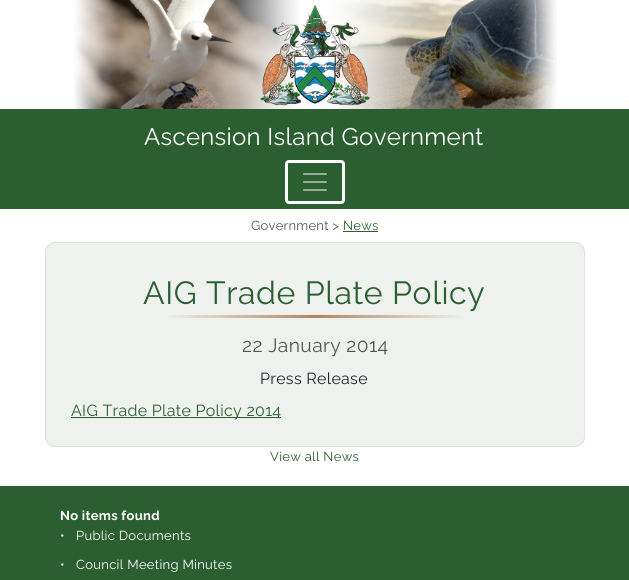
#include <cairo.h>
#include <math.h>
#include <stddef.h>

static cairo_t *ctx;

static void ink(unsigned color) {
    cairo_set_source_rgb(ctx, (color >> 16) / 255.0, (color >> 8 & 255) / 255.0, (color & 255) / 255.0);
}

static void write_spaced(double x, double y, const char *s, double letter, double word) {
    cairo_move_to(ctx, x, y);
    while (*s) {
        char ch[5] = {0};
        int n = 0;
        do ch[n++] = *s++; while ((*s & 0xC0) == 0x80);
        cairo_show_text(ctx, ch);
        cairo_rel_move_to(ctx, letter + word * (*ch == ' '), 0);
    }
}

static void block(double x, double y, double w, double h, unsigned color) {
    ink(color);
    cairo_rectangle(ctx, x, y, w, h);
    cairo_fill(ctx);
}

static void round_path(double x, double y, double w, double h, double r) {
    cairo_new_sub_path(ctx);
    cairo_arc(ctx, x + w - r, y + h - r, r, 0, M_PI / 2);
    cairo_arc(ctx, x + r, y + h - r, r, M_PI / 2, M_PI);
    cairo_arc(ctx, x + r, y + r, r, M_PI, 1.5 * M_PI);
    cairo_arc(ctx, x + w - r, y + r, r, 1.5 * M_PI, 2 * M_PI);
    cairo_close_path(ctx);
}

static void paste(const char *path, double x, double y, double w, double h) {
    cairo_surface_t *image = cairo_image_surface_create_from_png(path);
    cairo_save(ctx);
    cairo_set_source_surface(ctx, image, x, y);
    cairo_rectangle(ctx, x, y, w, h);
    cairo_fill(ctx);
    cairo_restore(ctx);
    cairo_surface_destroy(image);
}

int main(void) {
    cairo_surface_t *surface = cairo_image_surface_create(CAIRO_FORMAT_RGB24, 629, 580);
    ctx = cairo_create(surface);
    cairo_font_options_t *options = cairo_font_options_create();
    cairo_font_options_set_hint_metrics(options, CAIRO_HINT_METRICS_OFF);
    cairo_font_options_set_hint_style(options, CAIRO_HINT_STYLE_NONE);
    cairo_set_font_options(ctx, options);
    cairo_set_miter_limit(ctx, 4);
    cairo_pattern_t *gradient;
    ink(0xffffff);
    cairo_paint(ctx);
    paste("pic1.png", 74, 0, 483, 109);
    block(0, 109, 629, 100, 0x2b5f31);
    cairo_select_font_face(ctx, "Raleway", CAIRO_FONT_SLANT_NORMAL, CAIRO_FONT_WEIGHT_NORMAL);
    cairo_set_font_size(ctx, 24);
    ink(0xffffff);
    write_spaced(144, 145, "Ascension Island Government", 0.3, 0);
    round_path(286.5, 161.5, 57, 41, 2.5);
    cairo_set_line_width(ctx, 3);
    cairo_stroke(ctx);
    paste("pic2.png", 303, 173, 24, 18);
    cairo_set_font_size(ctx, 13);
    ink(0x555555);
    write_spaced(251, 230, "Government >", 0.25, 0);
    ink(0x2b5f31);
    write_spaced(343, 230, "News", 0.25, 0);
    block(343, 231, 35, 1, 0x2b5f31);
    ink(0xeef1ee);
    round_path(45.5, 242.5, 539, 204, 9.5);
    cairo_fill_preserve(ctx);
    ink(0xdde1dd);
    cairo_set_line_width(ctx, 1);
    cairo_stroke(ctx);
    cairo_set_font_size(ctx, 32);
    ink(0x2b5f31);
    write_spaced(143, 304, "AIG Trade Plate Policy", 0.6, 0);
    gradient = cairo_pattern_create_linear(165, 317, 465, 317);
    cairo_pattern_add_color_stop_rgba(gradient, 0, 0.933, 0.945, 0.933, 1);
    cairo_pattern_add_color_stop_rgba(gradient, 0.5, 0.694, 0.522, 0.369, 1);
    cairo_pattern_add_color_stop_rgba(gradient, 1, 0.933, 0.945, 0.933, 1);
    cairo_set_source(ctx, gradient);
    cairo_pattern_destroy(gradient);
    cairo_rectangle(ctx, 165, 315, 300, 3);
    cairo_fill(ctx);
    cairo_set_font_size(ctx, 19.25);
    ink(0x555555);
    write_spaced(242, 352, "22 January 2014", 0.4, 0);
    cairo_set_font_size(ctx, 16);
    ink(0x212529);
    write_spaced(260, 384, "Press Release", 0.3, 0);
    block(71, 417, 210, 1, 0x2b5f31);
    write_spaced(71, 416, "AIG Trade Plate Policy 2014", 0.3, 0);
    cairo_set_font_size(ctx, 13);
    write_spaced(270, 461, "View all News", 0.3, 0);
    block(0, 486, 629, 94, 0x2b5f31);
    cairo_select_font_face(ctx, "Raleway", CAIRO_FONT_SLANT_NORMAL, CAIRO_FONT_WEIGHT_BOLD);
    ink(0xffffff);
    write_spaced(60, 520, "No items found", 0.3, 0);
    cairo_select_font_face(ctx, "Raleway", CAIRO_FONT_SLANT_NORMAL, CAIRO_FONT_WEIGHT_NORMAL);
    write_spaced(60, 540, "•", 0.3, 0);
    write_spaced(76, 540, "Public Documents", 0.3, 0);
    write_spaced(60, 569, "•", 0.3, 0);
    write_spaced(76, 569, "Council Meeting Minutes", 0.3, 0);
    cairo_surface_write_to_png(surface, "screenshot.png");
    cairo_font_options_destroy(options);
    cairo_destroy(ctx);
    cairo_surface_destroy(surface);
    return 0;
}
